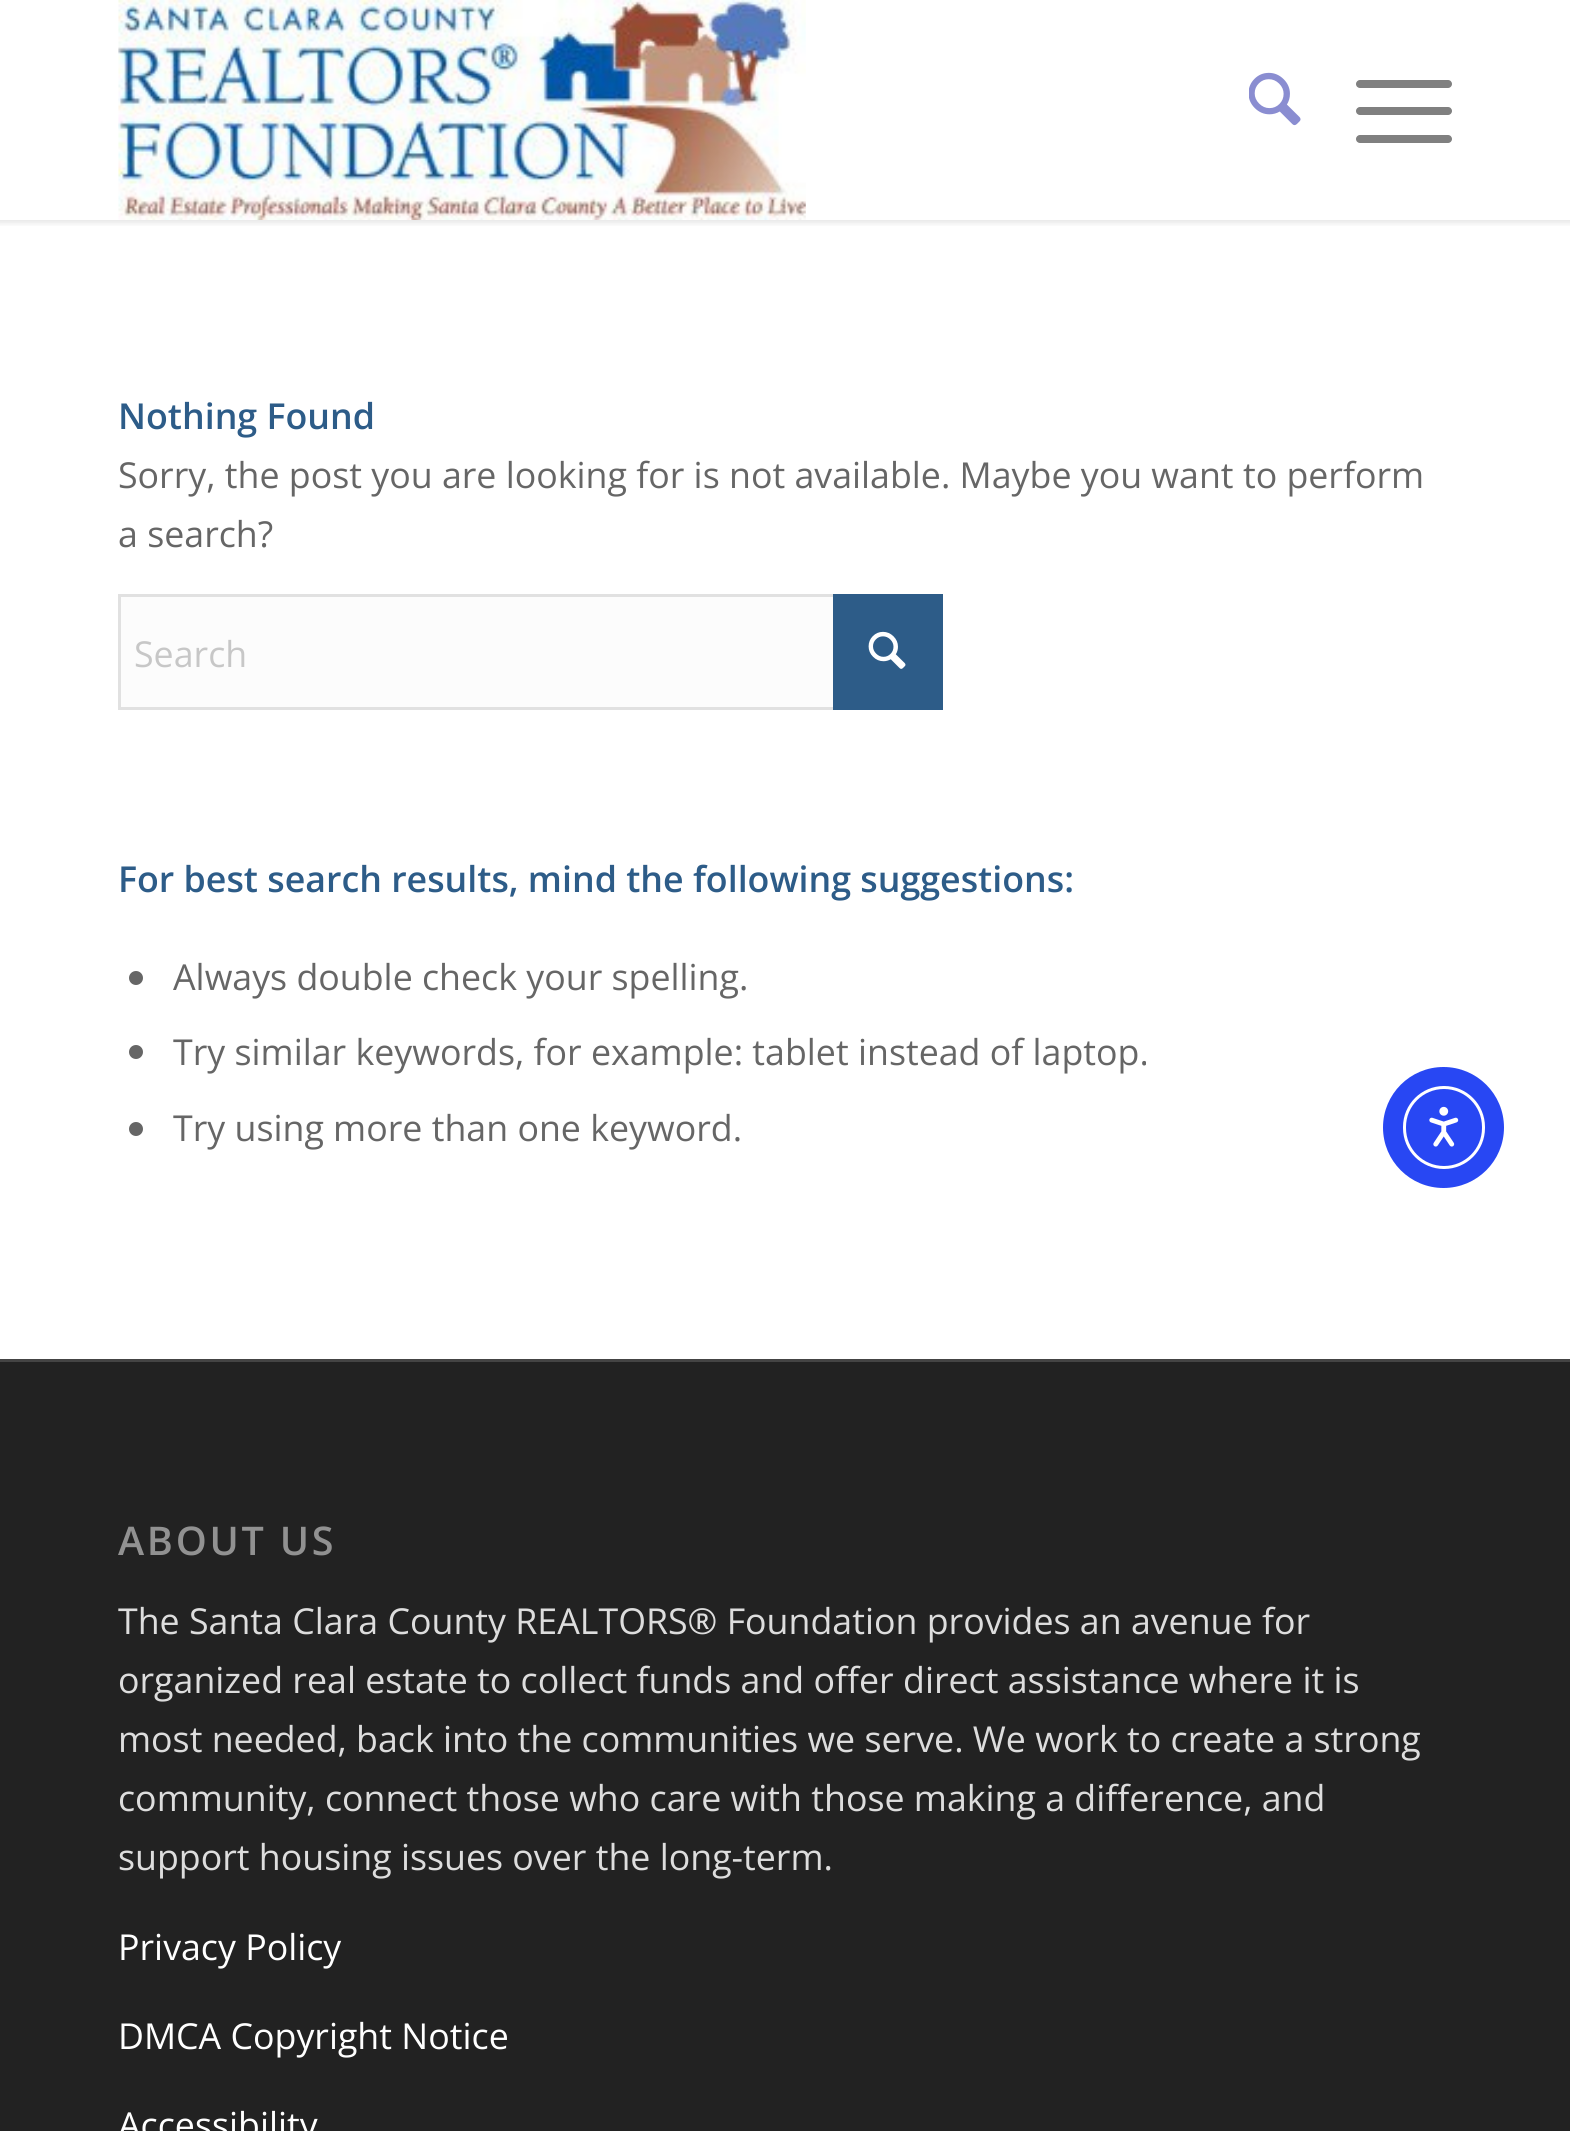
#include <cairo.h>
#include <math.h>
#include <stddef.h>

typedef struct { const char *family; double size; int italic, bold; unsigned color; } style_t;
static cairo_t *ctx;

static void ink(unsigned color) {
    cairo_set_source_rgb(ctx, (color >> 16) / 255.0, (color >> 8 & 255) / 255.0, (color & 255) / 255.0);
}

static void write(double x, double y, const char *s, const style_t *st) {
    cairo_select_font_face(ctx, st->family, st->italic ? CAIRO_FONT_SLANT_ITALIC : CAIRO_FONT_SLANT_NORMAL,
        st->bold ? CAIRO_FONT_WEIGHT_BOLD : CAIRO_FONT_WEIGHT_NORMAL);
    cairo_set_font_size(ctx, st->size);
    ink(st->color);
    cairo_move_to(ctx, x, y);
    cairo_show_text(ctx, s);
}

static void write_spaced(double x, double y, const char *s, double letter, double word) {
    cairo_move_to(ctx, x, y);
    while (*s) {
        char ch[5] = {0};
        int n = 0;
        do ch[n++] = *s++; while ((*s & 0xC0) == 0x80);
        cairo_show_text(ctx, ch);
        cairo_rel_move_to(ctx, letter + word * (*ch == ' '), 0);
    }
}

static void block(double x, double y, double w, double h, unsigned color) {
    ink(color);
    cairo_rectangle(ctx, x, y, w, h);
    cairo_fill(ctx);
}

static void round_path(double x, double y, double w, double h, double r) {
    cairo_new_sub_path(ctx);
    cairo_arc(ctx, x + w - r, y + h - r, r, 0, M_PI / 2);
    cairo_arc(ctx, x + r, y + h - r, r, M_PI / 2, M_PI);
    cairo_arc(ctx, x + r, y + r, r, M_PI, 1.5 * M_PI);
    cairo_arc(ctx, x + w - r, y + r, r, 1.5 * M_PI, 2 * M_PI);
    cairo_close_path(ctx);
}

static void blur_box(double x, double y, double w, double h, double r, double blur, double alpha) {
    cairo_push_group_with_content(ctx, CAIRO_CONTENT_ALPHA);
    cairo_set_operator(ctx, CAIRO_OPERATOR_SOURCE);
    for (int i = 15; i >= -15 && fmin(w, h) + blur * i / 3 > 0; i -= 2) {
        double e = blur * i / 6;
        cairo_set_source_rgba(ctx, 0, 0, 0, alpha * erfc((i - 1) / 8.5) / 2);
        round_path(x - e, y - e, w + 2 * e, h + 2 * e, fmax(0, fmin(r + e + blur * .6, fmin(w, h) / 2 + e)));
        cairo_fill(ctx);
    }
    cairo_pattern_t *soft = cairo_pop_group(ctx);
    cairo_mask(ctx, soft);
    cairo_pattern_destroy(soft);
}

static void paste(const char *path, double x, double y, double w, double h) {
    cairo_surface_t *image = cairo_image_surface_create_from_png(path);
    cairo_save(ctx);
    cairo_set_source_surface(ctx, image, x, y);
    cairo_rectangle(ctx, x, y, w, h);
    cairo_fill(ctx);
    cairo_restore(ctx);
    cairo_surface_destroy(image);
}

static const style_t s1 = {"Open Sans SemiBold", 35.75, 0, 0, 0x2d5c88};
static const style_t s2 = {"Open Sans", 35.75, 0, 0, 0x666666};
static const style_t s3 = {"Open Sans", 35.75, 0, 0, 0xc7c7c7};
static const style_t s4 = {"Open Sans", 35.75, 0, 0, 0xdddddd};
static const style_t s5 = {"Open Sans", 35.75, 0, 0, 0xffffff};

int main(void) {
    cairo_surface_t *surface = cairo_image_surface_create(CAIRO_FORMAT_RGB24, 1570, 2131);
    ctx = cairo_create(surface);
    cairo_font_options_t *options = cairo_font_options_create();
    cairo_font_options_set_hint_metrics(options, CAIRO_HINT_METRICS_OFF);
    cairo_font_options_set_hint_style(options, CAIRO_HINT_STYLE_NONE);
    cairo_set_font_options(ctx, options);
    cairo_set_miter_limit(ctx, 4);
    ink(0xffffff);
    cairo_paint(ctx);
    cairo_save(ctx);
    cairo_rectangle(ctx, 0, 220, 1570, 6);
    cairo_clip(ctx);
    ink(0x000000);
    blur_box(-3, -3, 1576, 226, 0, 3, 0.1);
    cairo_restore(ctx);
    paste("pic1.png", 118, 0, 688, 220);
    paste("pic2.png", 1249, 72, 52, 54);
    ink(0x808080);
    round_path(1356, 107, 96, 8, 4);
    cairo_fill(ctx);
    round_path(1356, 80, 96, 8, 4);
    cairo_fill(ctx);
    round_path(1356, 135, 96, 8, 4);
    cairo_fill(ctx);
    write(118, 429, "Nothing Found", &s1);
    write(118, 488, "Sorry, the post you are looking for is not available. Maybe you want to perform", &s2);
    write(118, 547, "a search?", &s2);
    block(121, 597, 712, 110, 0xfcfcfc);
    cairo_rectangle(ctx, 119.5, 595.5, 822, 113);
    ink(0xe1e1e1);
    cairo_set_line_width(ctx, 3);
    cairo_stroke(ctx);
    block(833, 594, 110, 116, 0x2d5c88);
    write(134, 667, "Search", &s3);
    paste("pic3.png", 868, 631, 38, 38);
    write(118, 892, "For best search results, mind the following suggestions:", &s1);
    ink(0x666666);
    cairo_new_path(ctx);
    cairo_arc(ctx, 136, 978, 7, 0, 2 * M_PI);
    cairo_fill(ctx);
    write(173, 990, "Always double check your spelling.", &s2);
    cairo_new_path(ctx);
    cairo_arc(ctx, 136, 1052, 7, 0, 2 * M_PI);
    cairo_fill(ctx);
    write(173, 1065, "Try similar keywords, for example: tablet instead of laptop.", &s2);
    cairo_new_path(ctx);
    cairo_arc(ctx, 136, 1129, 7, 0, 2 * M_PI);
    cairo_fill(ctx);
    write(173, 1141, "Try using more than one keyword.", &s2);
    block(0, 1362, 1570, 769, 0x222222);
    block(0, 1359, 1570, 3, 0x444444);
    cairo_select_font_face(ctx, "Open Sans SemiBold", CAIRO_FONT_SLANT_NORMAL, CAIRO_FONT_WEIGHT_NORMAL);
    cairo_set_font_size(ctx, 39.5);
    ink(0x919191);
    write_spaced(118, 1555, "ABOUT US", 2.75, 0);
    write(118, 1634, "The Santa Clara County REALTORS® Foundation provides an avenue for", &s4);
    write(118, 1693, "organized real estate to collect funds and offer direct assistance where it is", &s4);
    write(118, 1752, "most needed, back into the communities we serve. We work to create a strong", &s4);
    write(118, 1811, "community, connect those who care with those making a difference, and", &s4);
    write(118, 1870, "support housing issues over the long-term.", &s4);
    write(118, 1960, "Privacy Policy", &s5);
    write(118, 2049, "DMCA Copyright Notice", &s5);
    write(118, 2138, "Accessibility", &s5);
    ink(0x2847f3);
    cairo_new_path(ctx);
    cairo_arc(ctx, 1443.5, 1127.5, 60.5, 0, 2 * M_PI);
    cairo_fill(ctx);
    round_path(1404.5, 1087.5, 79, 80, 39.5);
    ink(0xffffff);
    cairo_stroke(ctx);
    paste("pic4.png", 1429, 1106, 30, 41);
    cairo_surface_write_to_png(surface, "screenshot.png");
    cairo_font_options_destroy(options);
    cairo_destroy(ctx);
    cairo_surface_destroy(surface);
    return 0;
}
